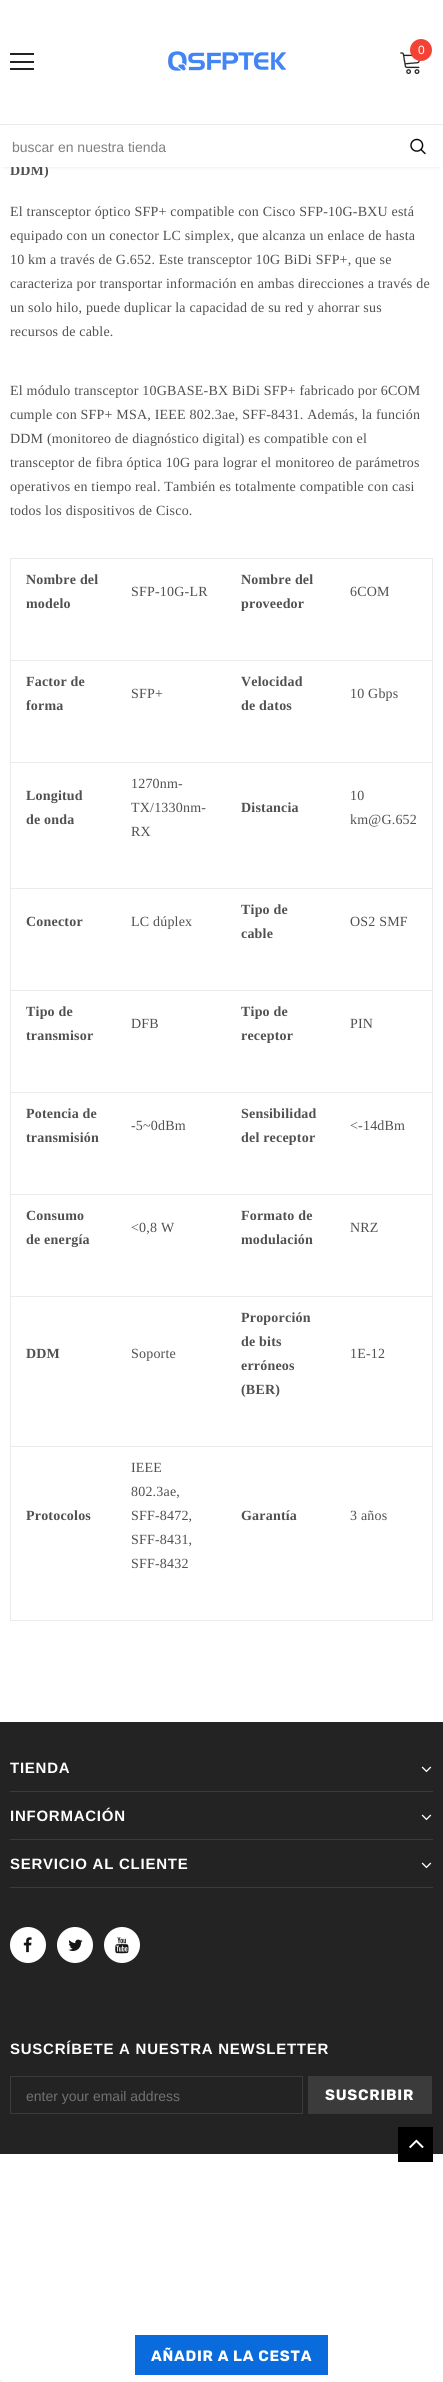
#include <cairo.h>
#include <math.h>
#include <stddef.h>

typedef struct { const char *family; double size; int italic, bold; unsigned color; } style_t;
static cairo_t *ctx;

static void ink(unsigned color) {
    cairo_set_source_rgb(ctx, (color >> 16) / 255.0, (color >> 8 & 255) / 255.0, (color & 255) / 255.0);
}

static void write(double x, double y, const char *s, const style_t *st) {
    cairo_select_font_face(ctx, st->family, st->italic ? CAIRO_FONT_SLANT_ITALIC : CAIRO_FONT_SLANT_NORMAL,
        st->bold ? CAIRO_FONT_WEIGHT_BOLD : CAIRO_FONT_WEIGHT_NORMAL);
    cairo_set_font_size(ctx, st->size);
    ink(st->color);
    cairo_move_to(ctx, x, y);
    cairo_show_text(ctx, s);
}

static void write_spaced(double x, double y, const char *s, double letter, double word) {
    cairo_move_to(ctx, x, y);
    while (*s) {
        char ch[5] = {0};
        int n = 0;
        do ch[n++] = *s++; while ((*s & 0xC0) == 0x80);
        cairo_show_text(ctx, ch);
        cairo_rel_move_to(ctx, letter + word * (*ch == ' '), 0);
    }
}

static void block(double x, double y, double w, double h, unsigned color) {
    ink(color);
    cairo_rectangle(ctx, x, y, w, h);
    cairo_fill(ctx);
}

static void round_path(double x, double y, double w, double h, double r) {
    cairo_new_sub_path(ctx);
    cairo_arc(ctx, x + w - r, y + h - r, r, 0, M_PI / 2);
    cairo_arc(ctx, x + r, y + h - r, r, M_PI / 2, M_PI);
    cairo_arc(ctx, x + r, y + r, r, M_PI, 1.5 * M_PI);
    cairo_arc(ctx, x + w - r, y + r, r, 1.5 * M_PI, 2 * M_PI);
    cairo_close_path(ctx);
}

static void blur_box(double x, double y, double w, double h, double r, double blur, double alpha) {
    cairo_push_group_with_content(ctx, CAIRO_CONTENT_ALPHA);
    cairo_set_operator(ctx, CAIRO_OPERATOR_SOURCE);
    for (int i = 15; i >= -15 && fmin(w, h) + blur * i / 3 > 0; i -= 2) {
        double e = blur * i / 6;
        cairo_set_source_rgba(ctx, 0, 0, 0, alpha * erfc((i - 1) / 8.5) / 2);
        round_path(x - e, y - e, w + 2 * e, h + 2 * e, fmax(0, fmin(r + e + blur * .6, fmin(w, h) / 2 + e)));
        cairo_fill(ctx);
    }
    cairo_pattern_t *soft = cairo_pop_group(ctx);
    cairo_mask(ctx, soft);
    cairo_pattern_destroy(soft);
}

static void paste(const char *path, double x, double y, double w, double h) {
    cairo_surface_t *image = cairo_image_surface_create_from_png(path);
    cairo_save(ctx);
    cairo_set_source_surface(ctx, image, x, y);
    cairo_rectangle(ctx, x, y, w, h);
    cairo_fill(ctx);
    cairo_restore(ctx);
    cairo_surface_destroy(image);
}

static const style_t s1 = {"Liberation Sans", 12, 0, 0, 0xffffff};
static const style_t s2 = {"Liberation Sans", 14, 0, 0, 0x808080};
static const style_t s3 = {"Liberation Sans", 14, 0, 0, 0x717171};

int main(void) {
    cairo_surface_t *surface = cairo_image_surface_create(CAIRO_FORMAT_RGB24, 443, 2382);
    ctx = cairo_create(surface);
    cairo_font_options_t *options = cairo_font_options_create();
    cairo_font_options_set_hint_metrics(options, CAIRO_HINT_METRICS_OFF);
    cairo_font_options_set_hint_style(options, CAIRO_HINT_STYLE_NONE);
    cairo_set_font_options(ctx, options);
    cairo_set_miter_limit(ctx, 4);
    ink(0xffffff);
    cairo_paint(ctx);
    paste("pic1.png", 400, 52, 20, 22);
    ink(0xf44336);
    cairo_arc(ctx, 421, 50, 11, 0, 2 * M_PI);
    cairo_fill(ctx);
    write(418, 54, "0", &s1);
    ink(0x000000);
    blur_box(3, 130, 437, 37, 0, 1.5, 0.12);
    cairo_select_font_face(ctx, "Liberation Serif", CAIRO_FONT_SLANT_NORMAL, CAIRO_FONT_WEIGHT_BOLD);
    cairo_set_font_size(ctx, 14);
    ink(0x505050);
    write_spaced(10, 175, "DDM)", 0.2, 0);
    block(1, 128, 441, 39, 0xffffff);
    block(0, 124, 443, 1, 0xeaeaea);
    write(12, 152, "buscar en nuestra tienda", &s2);
    paste("pic2.png", 410, 138, 16, 17);
    block(10, 53, 24, 2, 0x232323);
    block(10, 61, 24, 2, 0x232323);
    block(10, 68, 24, 2, 0x232323);
    paste("pic3.png", 168, 51, 118, 20);
    cairo_select_font_face(ctx, "Liberation Serif", CAIRO_FONT_SLANT_NORMAL, CAIRO_FONT_WEIGHT_NORMAL);
    ink(0x505050);
    write_spaced(10, 216, "El transceptor óptico SFP+ compatible con Cisco SFP-10G-BXU está", 0.2, 0);
    write_spaced(10, 240, "equipado con un conector LC simplex, que alcanza un enlace de hasta", 0.2, 0);
    write_spaced(10, 264, "10 km a través de G.652. Este transceptor 10G BiDi SFP+, que se", 0.2, 0);
    write_spaced(10, 288, "caracteriza por transportar información en ambas direcciones a través de", 0.2, 0);
    write_spaced(10, 312, "un solo hilo, puede duplicar la capacidad de su red y ahorrar sus", 0.2, 0);
    write_spaced(10, 336, "recursos de cable.", 0.2, 0);
    write_spaced(10, 395, "El módulo transceptor 10GBASE-BX BiDi SFP+ fabricado por 6COM", 0.2, 0);
    write_spaced(10, 419, "cumple con SFP+ MSA, IEEE 802.3ae, SFF-8431. Además, la función", 0.2, 0);
    write_spaced(10, 443, "DDM (monitoreo de diagnóstico digital) es compatible con el", 0.2, 0);
    write_spaced(10, 467, "transceptor de fibra óptica 10G para lograr el monitoreo de parámetros", 0.2, 0);
    write_spaced(10, 491, "operativos en tiempo real. También es totalmente compatible con casi", 0.2, 0);
    write_spaced(10, 515, "todos los dispositivos de Cisco.", 0.2, 0);
    block(10, 558, 423, 1, 0xebebeb);
    block(432, 558, 1, 1063, 0xebebeb);
    block(10, 1620, 423, 1, 0xebebeb);
    block(10, 558, 1, 1063, 0xebebeb);
    cairo_select_font_face(ctx, "Liberation Serif", CAIRO_FONT_SLANT_NORMAL, CAIRO_FONT_WEIGHT_BOLD);
    ink(0x505050);
    write_spaced(26, 584, "Nombre del", 0.2, 0);
    write_spaced(26, 608, "modelo", 0.2, 0);
    cairo_select_font_face(ctx, "Liberation Serif", CAIRO_FONT_SLANT_NORMAL, CAIRO_FONT_WEIGHT_NORMAL);
    write_spaced(131, 596, "SFP-10G-LR", 0.2, 0);
    cairo_select_font_face(ctx, "Liberation Serif", CAIRO_FONT_SLANT_NORMAL, CAIRO_FONT_WEIGHT_BOLD);
    write_spaced(241, 584, "Nombre del", 0.2, 0);
    write_spaced(241, 608, "proveedor", 0.2, 0);
    block(10, 660, 423, 1, 0xebebeb);
    cairo_select_font_face(ctx, "Liberation Serif", CAIRO_FONT_SLANT_NORMAL, CAIRO_FONT_WEIGHT_NORMAL);
    ink(0x505050);
    write_spaced(350, 596, "6COM", 0.2, 0);
    cairo_select_font_face(ctx, "Liberation Serif", CAIRO_FONT_SLANT_NORMAL, CAIRO_FONT_WEIGHT_BOLD);
    write_spaced(26, 686, "Factor de", 0.2, 0);
    write_spaced(26, 710, "forma", 0.2, 0);
    cairo_select_font_face(ctx, "Liberation Serif", CAIRO_FONT_SLANT_NORMAL, CAIRO_FONT_WEIGHT_NORMAL);
    write_spaced(131, 698, "SFP+", 0.2, 0);
    cairo_select_font_face(ctx, "Liberation Serif", CAIRO_FONT_SLANT_NORMAL, CAIRO_FONT_WEIGHT_BOLD);
    write_spaced(241, 686, "Velocidad", 0.2, 0);
    write_spaced(241, 710, "de datos", 0.2, 0);
    block(10, 762, 423, 1, 0xebebeb);
    cairo_select_font_face(ctx, "Liberation Serif", CAIRO_FONT_SLANT_NORMAL, CAIRO_FONT_WEIGHT_NORMAL);
    ink(0x505050);
    write_spaced(350, 698, "10 Gbps", 0.2, 0);
    cairo_select_font_face(ctx, "Liberation Serif", CAIRO_FONT_SLANT_NORMAL, CAIRO_FONT_WEIGHT_BOLD);
    write_spaced(26, 800, "Longitud", 0.2, 0);
    write_spaced(26, 824, "de onda", 0.2, 0);
    cairo_select_font_face(ctx, "Liberation Serif", CAIRO_FONT_SLANT_NORMAL, CAIRO_FONT_WEIGHT_NORMAL);
    write_spaced(131, 788, "1270nm-", 0.2, 0);
    write_spaced(131, 812, "TX/1330nm-", 0.2, 0);
    write_spaced(131, 836, "RX", 0.2, 0);
    cairo_select_font_face(ctx, "Liberation Serif", CAIRO_FONT_SLANT_NORMAL, CAIRO_FONT_WEIGHT_BOLD);
    write_spaced(241, 812, "Distancia", 0.2, 0);
    block(10, 888, 423, 1, 0xebebeb);
    cairo_select_font_face(ctx, "Liberation Serif", CAIRO_FONT_SLANT_NORMAL, CAIRO_FONT_WEIGHT_NORMAL);
    ink(0x505050);
    write_spaced(350, 800, "10", 0.2, 0);
    write_spaced(350, 824, "km@G.652", 0.2, 0);
    cairo_select_font_face(ctx, "Liberation Serif", CAIRO_FONT_SLANT_NORMAL, CAIRO_FONT_WEIGHT_BOLD);
    write_spaced(26, 926, "Conector", 0.2, 0);
    cairo_select_font_face(ctx, "Liberation Serif", CAIRO_FONT_SLANT_NORMAL, CAIRO_FONT_WEIGHT_NORMAL);
    write_spaced(131, 926, "LC dúplex", 0.2, 0);
    cairo_select_font_face(ctx, "Liberation Serif", CAIRO_FONT_SLANT_NORMAL, CAIRO_FONT_WEIGHT_BOLD);
    write_spaced(241, 914, "Tipo de", 0.2, 0);
    write_spaced(241, 938, "cable", 0.2, 0);
    block(10, 990, 423, 1, 0xebebeb);
    cairo_select_font_face(ctx, "Liberation Serif", CAIRO_FONT_SLANT_NORMAL, CAIRO_FONT_WEIGHT_NORMAL);
    ink(0x505050);
    write_spaced(350, 926, "OS2 SMF", 0.2, 0);
    cairo_select_font_face(ctx, "Liberation Serif", CAIRO_FONT_SLANT_NORMAL, CAIRO_FONT_WEIGHT_BOLD);
    write_spaced(26, 1016, "Tipo de", 0.2, 0);
    write_spaced(26, 1040, "transmisor", 0.2, 0);
    cairo_select_font_face(ctx, "Liberation Serif", CAIRO_FONT_SLANT_NORMAL, CAIRO_FONT_WEIGHT_NORMAL);
    write_spaced(131, 1028, "DFB", 0.2, 0);
    cairo_select_font_face(ctx, "Liberation Serif", CAIRO_FONT_SLANT_NORMAL, CAIRO_FONT_WEIGHT_BOLD);
    write_spaced(241, 1016, "Tipo de", 0.2, 0);
    write_spaced(241, 1040, "receptor", 0.2, 0);
    block(10, 1092, 423, 1, 0xebebeb);
    cairo_select_font_face(ctx, "Liberation Serif", CAIRO_FONT_SLANT_NORMAL, CAIRO_FONT_WEIGHT_NORMAL);
    ink(0x505050);
    write_spaced(350, 1028, "PIN", 0.2, 0);
    cairo_select_font_face(ctx, "Liberation Serif", CAIRO_FONT_SLANT_NORMAL, CAIRO_FONT_WEIGHT_BOLD);
    write_spaced(26, 1118, "Potencia de", 0.2, 0);
    write_spaced(26, 1142, "transmisión", 0.2, 0);
    cairo_select_font_face(ctx, "Liberation Serif", CAIRO_FONT_SLANT_NORMAL, CAIRO_FONT_WEIGHT_NORMAL);
    write_spaced(131, 1130, "-5~0dBm", 0.2, 0);
    cairo_select_font_face(ctx, "Liberation Serif", CAIRO_FONT_SLANT_NORMAL, CAIRO_FONT_WEIGHT_BOLD);
    write_spaced(241, 1118, "Sensibilidad", 0.2, 0);
    write_spaced(241, 1142, "del receptor", 0.2, 0);
    block(10, 1194, 423, 1, 0xebebeb);
    cairo_select_font_face(ctx, "Liberation Serif", CAIRO_FONT_SLANT_NORMAL, CAIRO_FONT_WEIGHT_NORMAL);
    ink(0x505050);
    write_spaced(350, 1130, "<-14dBm", 0.2, 0);
    cairo_select_font_face(ctx, "Liberation Serif", CAIRO_FONT_SLANT_NORMAL, CAIRO_FONT_WEIGHT_BOLD);
    write_spaced(26, 1220, "Consumo", 0.2, 0);
    write_spaced(26, 1244, "de energía", 0.2, 0);
    cairo_select_font_face(ctx, "Liberation Serif", CAIRO_FONT_SLANT_NORMAL, CAIRO_FONT_WEIGHT_NORMAL);
    write_spaced(131, 1232, "<0,8 W", 0.2, 0);
    cairo_select_font_face(ctx, "Liberation Serif", CAIRO_FONT_SLANT_NORMAL, CAIRO_FONT_WEIGHT_BOLD);
    write_spaced(241, 1220, "Formato de", 0.2, 0);
    write_spaced(241, 1244, "modulación", 0.2, 0);
    block(10, 1296, 423, 1, 0xebebeb);
    cairo_select_font_face(ctx, "Liberation Serif", CAIRO_FONT_SLANT_NORMAL, CAIRO_FONT_WEIGHT_NORMAL);
    ink(0x505050);
    write_spaced(350, 1232, "NRZ", 0.2, 0);
    cairo_select_font_face(ctx, "Liberation Serif", CAIRO_FONT_SLANT_NORMAL, CAIRO_FONT_WEIGHT_BOLD);
    write_spaced(26, 1358, "DDM", 0.2, 0);
    cairo_select_font_face(ctx, "Liberation Serif", CAIRO_FONT_SLANT_NORMAL, CAIRO_FONT_WEIGHT_NORMAL);
    write_spaced(131, 1358, "Soporte", 0.2, 0);
    cairo_select_font_face(ctx, "Liberation Serif", CAIRO_FONT_SLANT_NORMAL, CAIRO_FONT_WEIGHT_BOLD);
    write_spaced(241, 1322, "Proporción", 0.2, 0);
    write_spaced(241, 1346, "de bits", 0.2, 0);
    write_spaced(241, 1370, "erróneos", 0.2, 0);
    write_spaced(241, 1394, "(BER)", 0.2, 0);
    block(10, 1446, 423, 1, 0xebebeb);
    cairo_select_font_face(ctx, "Liberation Serif", CAIRO_FONT_SLANT_NORMAL, CAIRO_FONT_WEIGHT_NORMAL);
    ink(0x505050);
    write_spaced(350, 1358, "1E-12", 0.2, 0);
    cairo_select_font_face(ctx, "Liberation Serif", CAIRO_FONT_SLANT_NORMAL, CAIRO_FONT_WEIGHT_BOLD);
    write_spaced(26, 1520, "Protocolos", 0.2, 0);
    cairo_select_font_face(ctx, "Liberation Serif", CAIRO_FONT_SLANT_NORMAL, CAIRO_FONT_WEIGHT_NORMAL);
    write_spaced(131, 1472, "IEEE", 0.2, 0);
    write_spaced(131, 1496, "802.3ae,", 0.2, 0);
    write_spaced(131, 1520, "SFF-8472,", 0.2, 0);
    write_spaced(131, 1544, "SFF-8431,", 0.2, 0);
    write_spaced(131, 1568, "SFF-8432", 0.2, 0);
    cairo_select_font_face(ctx, "Liberation Serif", CAIRO_FONT_SLANT_NORMAL, CAIRO_FONT_WEIGHT_BOLD);
    write_spaced(241, 1520, "Garantía", 0.2, 0);
    cairo_select_font_face(ctx, "Liberation Serif", CAIRO_FONT_SLANT_NORMAL, CAIRO_FONT_WEIGHT_NORMAL);
    write_spaced(350, 1520, "3 años", 0.2, 0);
    block(0, 1722, 443, 432, 0x232323);
    block(10, 1791, 423, 1, 0x3b3b3b);
    cairo_select_font_face(ctx, "Liberation Sans", CAIRO_FONT_SLANT_NORMAL, CAIRO_FONT_WEIGHT_BOLD);
    cairo_set_font_size(ctx, 15);
    ink(0xffffff);
    write_spaced(10, 1773, "TIENDA", 0.75, 0);
    paste("pic4.png", 421, 1766, 11, 7);
    block(10, 1839, 423, 1, 0x3b3b3b);
    ink(0xffffff);
    write_spaced(10, 1821, "INFORMACIÓN", 0.75, 0);
    paste("pic4.png", 421, 1814, 11, 7);
    block(10, 1887, 423, 1, 0x3b3b3b);
    ink(0xffffff);
    write_spaced(10, 1869, "SERVICIO AL CLIENTE", 0.75, 0);
    paste("pic4.png", 421, 1862, 11, 7);
    cairo_arc(ctx, 28, 1945, 18, 0, 2 * M_PI);
    cairo_fill(ctx);
    paste("pic5.png", 23, 1937, 9, 16);
    cairo_arc(ctx, 75, 1945, 18, 0, 2 * M_PI);
    cairo_fill(ctx);
    paste("pic6.png", 68, 1939, 15, 12);
    cairo_arc(ctx, 122, 1945, 18, 0, 2 * M_PI);
    cairo_fill(ctx);
    paste("pic7.png", 115, 1937, 14, 17);
    write_spaced(10, 2054, "SUSCRÍBETE A NUESTRA NEWSLETTER", 0.75, 0);
    cairo_rectangle(ctx, 10.5, 2076.5, 292, 37);
    ink(0x3b3b3b);
    cairo_set_line_width(ctx, 1);
    cairo_stroke(ctx);
    write(26, 2101, "enter your email address", &s3);
    block(308, 2076, 124, 38, 0x3b3b3b);
    cairo_select_font_face(ctx, "Rubik", CAIRO_FONT_SLANT_NORMAL, CAIRO_FONT_WEIGHT_BOLD);
    cairo_set_font_size(ctx, 15);
    ink(0xffffff);
    write_spaced(325, 2100, "SUSCRIBIR", 0.75, 0);
    block(398, 2127, 35, 35, 0x000000);
    paste("pic8.png", 409, 2139, 15, 9);
    block(135, 2335, 193, 40, 0x0a6cdc);
    ink(0xffffff);
    write_spaced(151, 2361, "AÑADIR A LA CESTA", 0.75, 0);
    block(0, 2380, 2, 2, 0xf5f5f5);
    cairo_surface_write_to_png(surface, "screenshot.png");
    cairo_font_options_destroy(options);
    cairo_destroy(ctx);
    cairo_surface_destroy(surface);
    return 0;
}
